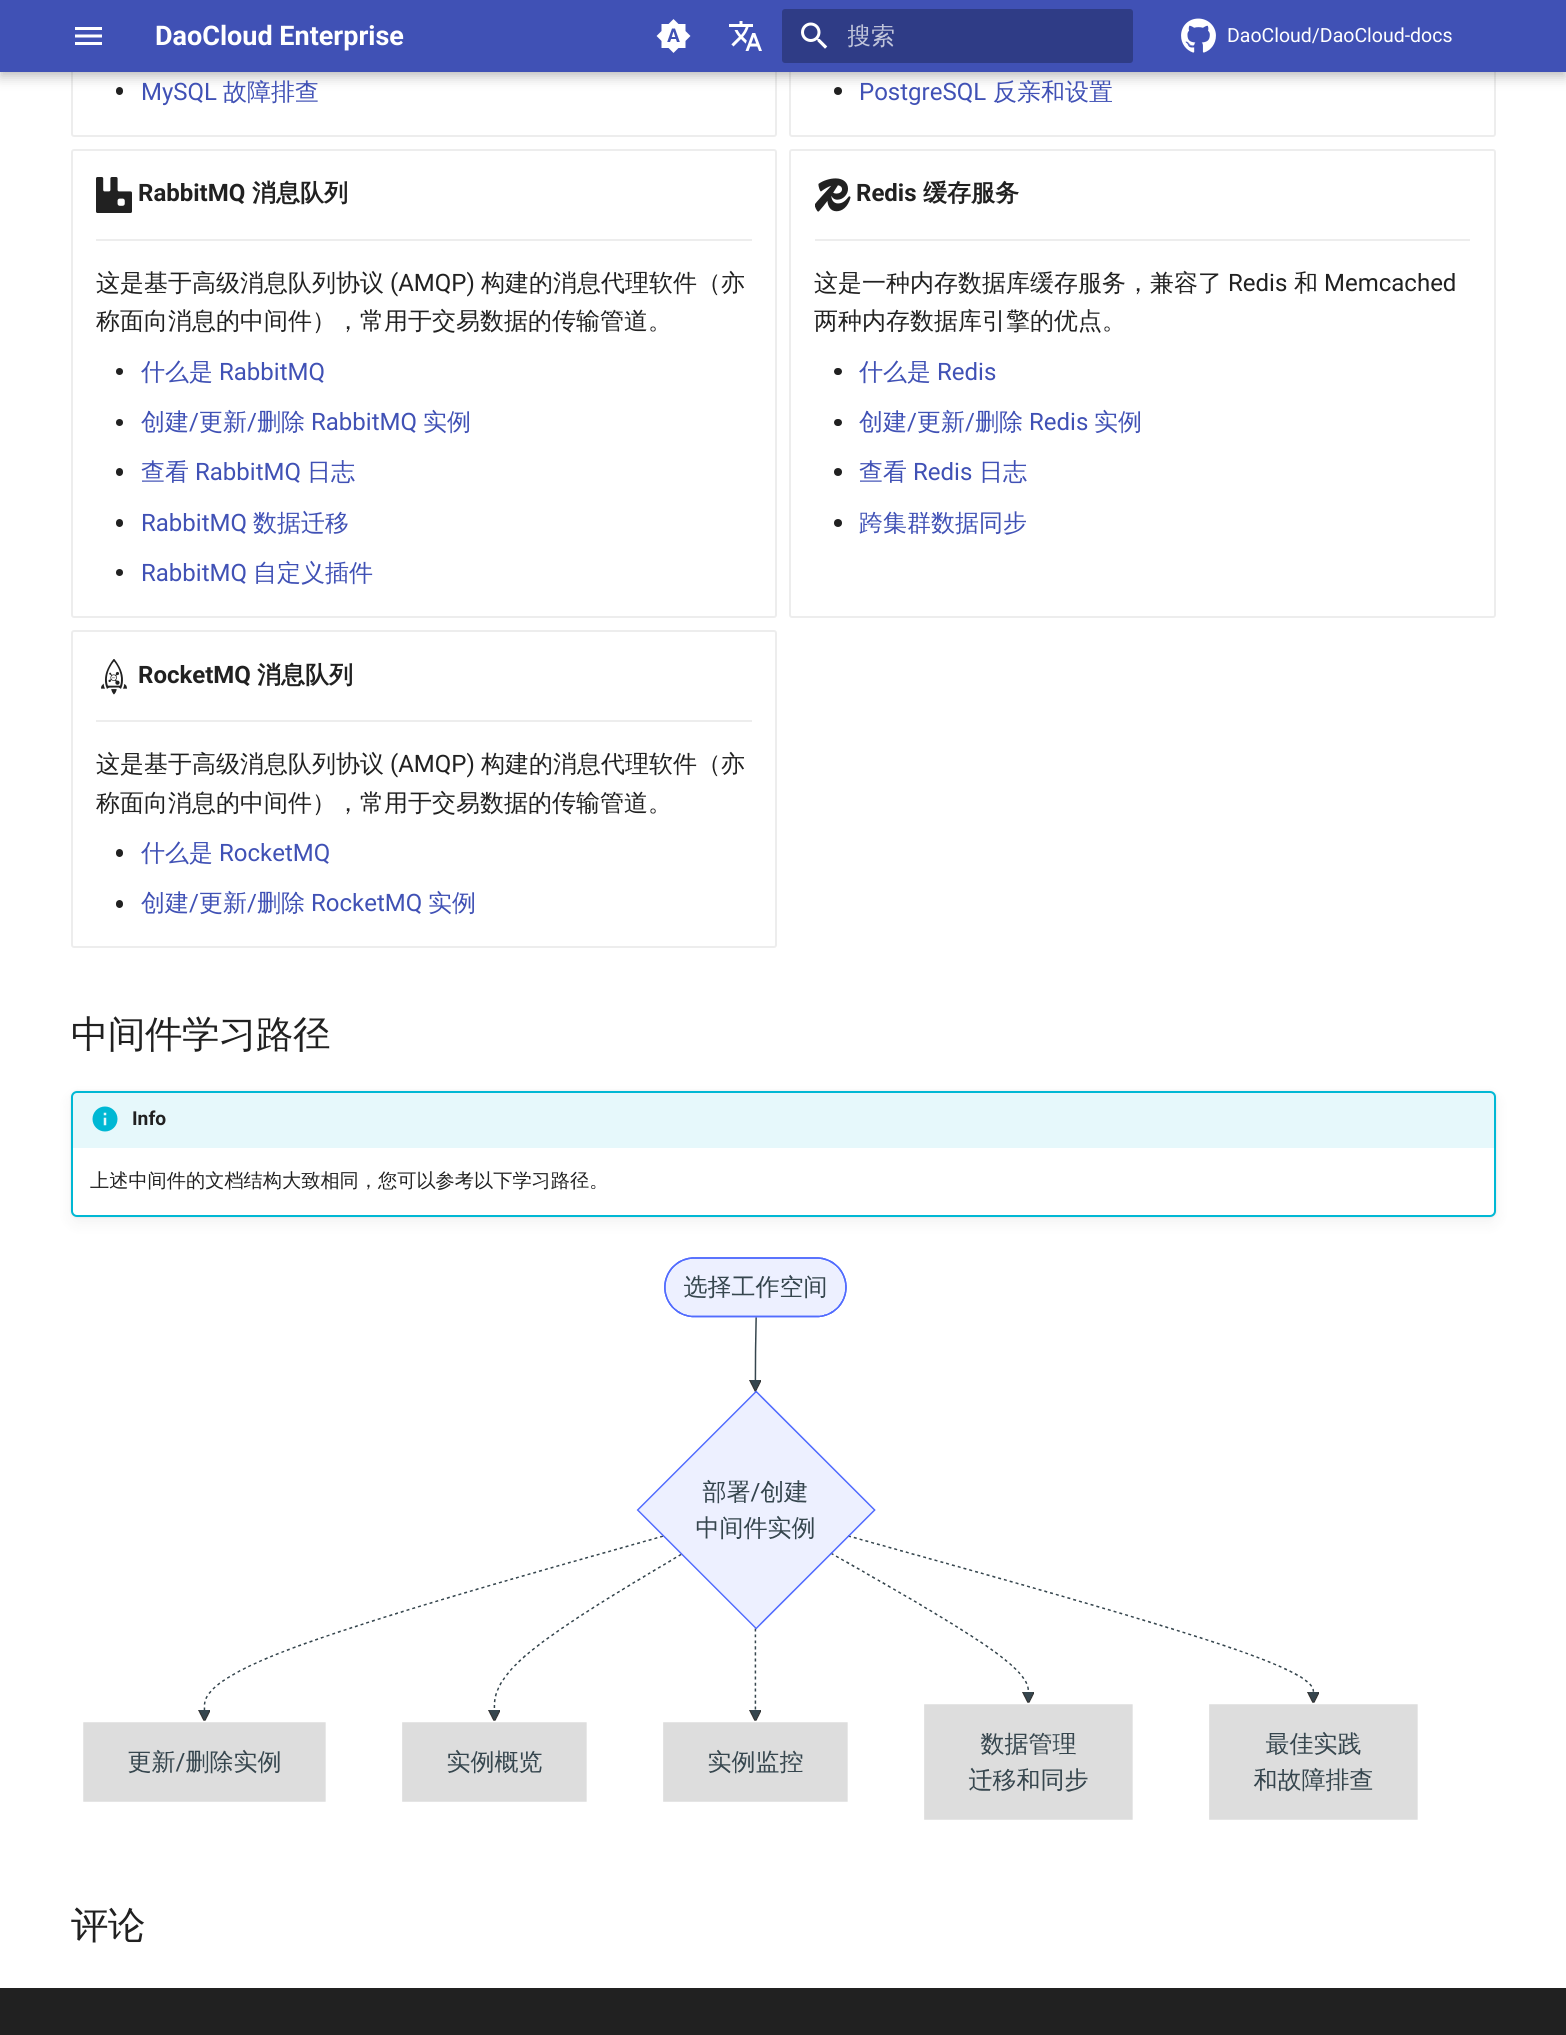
#include <cairo.h>
#include <math.h>
#include <stddef.h>

typedef struct { const char *family; double size; int italic, bold; unsigned color; } style_t;
static cairo_t *ctx;

static void ink(unsigned color) {
    cairo_set_source_rgb(ctx, (color >> 16) / 255.0, (color >> 8 & 255) / 255.0, (color & 255) / 255.0);
}

static void write(double x, double y, const char *s, const style_t *st) {
    cairo_select_font_face(ctx, st->family, st->italic ? CAIRO_FONT_SLANT_ITALIC : CAIRO_FONT_SLANT_NORMAL,
        st->bold ? CAIRO_FONT_WEIGHT_BOLD : CAIRO_FONT_WEIGHT_NORMAL);
    cairo_set_font_size(ctx, st->size);
    ink(st->color);
    cairo_move_to(ctx, x, y);
    cairo_show_text(ctx, s);
}

static void write_spaced(double x, double y, const char *s, double letter, double word) {
    cairo_move_to(ctx, x, y);
    while (*s) {
        char ch[5] = {0};
        int n = 0;
        do ch[n++] = *s++; while ((*s & 0xC0) == 0x80);
        cairo_show_text(ctx, ch);
        cairo_rel_move_to(ctx, letter + word * (*ch == ' '), 0);
    }
}

static void block(double x, double y, double w, double h, unsigned color) {
    ink(color);
    cairo_rectangle(ctx, x, y, w, h);
    cairo_fill(ctx);
}

static void round_path(double x, double y, double w, double h, double r) {
    cairo_new_sub_path(ctx);
    cairo_arc(ctx, x + w - r, y + h - r, r, 0, M_PI / 2);
    cairo_arc(ctx, x + r, y + h - r, r, M_PI / 2, M_PI);
    cairo_arc(ctx, x + r, y + r, r, M_PI, 1.5 * M_PI);
    cairo_arc(ctx, x + w - r, y + r, r, 1.5 * M_PI, 2 * M_PI);
    cairo_close_path(ctx);
}

static void blur_box(double x, double y, double w, double h, double r, double blur, double alpha) {
    cairo_push_group_with_content(ctx, CAIRO_CONTENT_ALPHA);
    cairo_set_operator(ctx, CAIRO_OPERATOR_SOURCE);
    for (int i = 15; i >= -15 && fmin(w, h) + blur * i / 3 > 0; i -= 2) {
        double e = blur * i / 6;
        cairo_set_source_rgba(ctx, 0, 0, 0, alpha * erfc((i - 1) / 8.5) / 2);
        round_path(x - e, y - e, w + 2 * e, h + 2 * e, fmax(0, fmin(r + e + blur * .6, fmin(w, h) / 2 + e)));
        cairo_fill(ctx);
    }
    cairo_pattern_t *soft = cairo_pop_group(ctx);
    cairo_mask(ctx, soft);
    cairo_pattern_destroy(soft);
}

static void paste(const char *path, double x, double y, double w, double h) {
    cairo_surface_t *image = cairo_image_surface_create_from_png(path);
    cairo_save(ctx);
    cairo_set_source_surface(ctx, image, x, y);
    cairo_rectangle(ctx, x, y, w, h);
    cairo_fill(ctx);
    cairo_restore(ctx);
    cairo_surface_destroy(image);
}

static const style_t s1 = {"Roboto", 27, 0, 1, 0xffffff};
static const style_t s2 = {"WenQuanYi Zen Hei Medium", 24, 0, 0, 0xc1c5db};
static const style_t s3 = {"Roboto", 19.5, 0, 0, 0xffffff};
static const style_t s4 = {"Roboto", 24, 0, 0, 0x4051b5};
static const style_t s5 = {"WenQuanYi Zen Hei Medium", 24, 0, 0, 0x4051b5};
static const style_t s6 = {"Roboto", 24, 0, 1, 0x212121};
static const style_t s7 = {"WenQuanYi Zen Hei", 24, 0, 1, 0x212121};
static const style_t s8 = {"WenQuanYi Zen Hei Medium", 24, 0, 0, 0x212121};
static const style_t s9 = {"Roboto", 24, 0, 0, 0x212121};
static const style_t s10 = {"Roboto", 19.2, 0, 1, 0x212121};
static const style_t s11 = {"WenQuanYi Zen Hei Medium", 19.2, 0, 0, 0x212121};

int main(void) {
    cairo_surface_t *surface = cairo_image_surface_create(CAIRO_FORMAT_RGB24, 1566, 2035);
    ctx = cairo_create(surface);
    cairo_font_options_t *options = cairo_font_options_create();
    cairo_font_options_set_hint_metrics(options, CAIRO_HINT_METRICS_OFF);
    cairo_font_options_set_hint_style(options, CAIRO_HINT_STYLE_NONE);
    cairo_set_font_options(ctx, options);
    cairo_set_miter_limit(ctx, 4);
    ink(0xffffff);
    cairo_paint(ctx);
    round_path(72, -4, 704, 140, 2);
    ink(0xededed);
    cairo_stroke(ctx);
    ink(0x212121);
    round_path(116, 87, 7, 8, 3.5);
    cairo_fill(ctx);
    round_path(790, -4, 705, 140, 2);
    ink(0xededed);
    cairo_stroke(ctx);
    ink(0x212121);
    cairo_arc(ctx, 838, 91, 4, 0, 2 * M_PI);
    cairo_fill(ctx);
    ink(0x000000);
    blur_box(0, 6, 1566, 72, 0, 6, 0.2);
    blur_box(0, 0, 1566, 72, 0, 3, 0.1);
    block(0, 0, 1566, 72, 0x4051b5);
    paste("pic1.png", 75, 27, 27, 18);
    write(155, 45, "DaoCloud Enterprise", &s1);
    paste("pic2.png", 656, 19, 35, 34);
    paste("pic3.png", 729, 21, 33, 30);
    ink(0x2f3c86);
    round_path(782, 9, 351, 54, 3);
    cairo_fill(ctx);
    paste("pic4.png", 801, 22, 27, 27);
    cairo_save(ctx);
    cairo_rectangle(ctx, 848, 23, 219, 31);
    cairo_clip(ctx);
    write(847, 44, "搜索", &s2);
    cairo_restore(ctx);
    paste("pic5.png", 1181, 18, 35, 35);
    write(1227, 42, "DaoCloud/DaoCloud-docs", &s3);
    write(141, 100, "MySQL", &s4);
    write(223, 100, "故障排查", &s5);
    write(859, 100, "PostgreSQL", &s4);
    write(993, 100, "反亲和设置", &s5);
    round_path(72, 150, 704, 467, 2);
    ink(0xededed);
    cairo_stroke(ctx);
    paste("pic6.png", 96, 177, 36, 36);
    write(138, 201, "RabbitMQ", &s6);
    write(252, 201, "消息队列", &s7);
    block(96, 239, 656, 2, 0xededed);
    write(96, 291, "这是基于高级消息队列协议", &s8);
    write(390, 291, "(AMQP)", &s9);
    write(481, 291, "构建的消息代理软件（亦", &s8);
    write(96, 329, "称面向消息的中间件），常用于交易数据的传输管道。", &s8);
    cairo_new_path(ctx);
    cairo_arc(ctx, 119.5, 371.5, 3.5, 0, 2 * M_PI);
    cairo_fill(ctx);
    write(141, 380, "什么是", &s5);
    write(219, 380, "RabbitMQ", &s4);
    ink(0x212121);
    cairo_new_path(ctx);
    cairo_arc(ctx, 119.5, 422.5, 3.5, 0, 2 * M_PI);
    cairo_fill(ctx);
    write(141, 430, "创建", &s5);
    write(189, 430, "/", &s4);
    write(199, 430, "更新", &s5);
    write(247, 430, "/", &s4);
    write(257, 430, "删除", &s5);
    write(311, 430, "RabbitMQ", &s4);
    write(423, 430, "实例", &s5);
    ink(0x212121);
    round_path(116, 468, 7, 8, 3.5);
    cairo_fill(ctx);
    write(141, 480, "查看", &s5);
    write(195, 480, "RabbitMQ", &s4);
    write(307, 480, "日志", &s5);
    ink(0x212121);
    round_path(116, 519, 7, 8, 3.5);
    cairo_fill(ctx);
    write(141, 531, "RabbitMQ", &s4);
    write(253, 531, "数据迁移", &s5);
    ink(0x212121);
    cairo_new_path(ctx);
    cairo_arc(ctx, 119.5, 572.5, 3.5, 0, 2 * M_PI);
    cairo_fill(ctx);
    write(141, 581, "RabbitMQ", &s4);
    write(253, 581, "自定义插件", &s5);
    round_path(790, 150, 705, 467, 2);
    ink(0xededed);
    cairo_stroke(ctx);
    paste("pic7.png", 815, 178, 36, 34);
    write(856, 201, "Redis", &s6);
    write(923, 201, "缓存服务", &s7);
    block(815, 239, 655, 2, 0xededed);
    write(814, 291, "这是一种内存数据库缓存服务，兼容了", &s8);
    write(1228, 291, "Redis", &s9);
    write(1294, 291, "和", &s8);
    write(1324, 291, "Memcached", &s9);
    write(814, 329, "两种内存数据库引擎的优点。", &s8);
    round_path(834, 368, 8, 7, 3.5);
    cairo_fill(ctx);
    write(859, 380, "什么是", &s5);
    write(937, 380, "Redis", &s4);
    ink(0x212121);
    round_path(834, 419, 8, 7, 3.5);
    cairo_fill(ctx);
    write(859, 430, "创建", &s5);
    write(907, 430, "/", &s4);
    write(917, 430, "更新", &s5);
    write(965, 430, "/", &s4);
    write(975, 430, "删除", &s5);
    write(1029, 430, "Redis", &s4);
    write(1094, 430, "实例", &s5);
    ink(0x212121);
    cairo_new_path(ctx);
    cairo_arc(ctx, 838, 472, 4, 0, 2 * M_PI);
    cairo_fill(ctx);
    write(859, 480, "查看", &s5);
    write(913, 480, "Redis", &s4);
    write(979, 480, "日志", &s5);
    ink(0x212121);
    cairo_new_path(ctx);
    cairo_arc(ctx, 838, 523, 4, 0, 2 * M_PI);
    cairo_fill(ctx);
    write(859, 531, "跨集群数据同步", &s5);
    round_path(72, 631, 704, 316, 2);
    ink(0xededed);
    cairo_stroke(ctx);
    paste("pic8.png", 101, 659, 26, 36);
    write(138, 683, "RocketMQ", &s6);
    write(257, 683, "消息队列", &s7);
    block(96, 720, 656, 2, 0xededed);
    write(96, 772, "这是基于高级消息队列协议", &s8);
    write(390, 772, "(AMQP)", &s9);
    write(481, 772, "构建的消息代理软件（亦", &s8);
    write(96, 811, "称面向消息的中间件），常用于交易数据的传输管道。", &s8);
    round_path(116, 849, 7, 8, 3.5);
    cairo_fill(ctx);
    write(141, 861, "什么是", &s5);
    write(219, 861, "RocketMQ", &s4);
    ink(0x212121);
    round_path(116, 900, 7, 8, 3.5);
    cairo_fill(ctx);
    write(141, 911, "创建", &s5);
    write(189, 911, "/", &s4);
    write(199, 911, "更新", &s5);
    write(247, 911, "/", &s4);
    write(257, 911, "删除", &s5);
    write(311, 911, "RocketMQ", &s4);
    write(428, 911, "实例", &s5);
    cairo_set_font_size(ctx, 37.5);
    ink(0x212121);
    write_spaced(71, 1047, "中间件学习路径", -0.5, 0);
    ink(0x000000);
    blur_box(71, 1091, 1425, 126, 6, 1, 0.1);
    blur_box(71, 1097, 1425, 126, 6, 7.5, 0.05);
    ink(0xffffff);
    round_path(72, 1092, 1423, 124, 5);
    cairo_fill_preserve(ctx);
    ink(0x00b8d4);
    cairo_stroke(ctx);
    cairo_set_source_rgba(ctx, 0, 0.722, 0.831, 0.1);
    cairo_new_path(ctx);
    cairo_move_to(ctx, 75, 1092);
    cairo_line_to(ctx, 1491, 1092);
    cairo_curve_to(ctx, 1492.5, 1092, 1494, 1093.5, 1494, 1095);
    cairo_line_to(ctx, 1494, 1148);
    cairo_line_to(ctx, 72, 1148);
    cairo_line_to(ctx, 72, 1095);
    cairo_curve_to(ctx, 72, 1093.5, 73.5, 1092, 75, 1092);
    cairo_close_path(ctx);
    cairo_fill(ctx);
    paste("pic9.png", 92, 1106, 26, 26);
    write(132, 1125, "Info", &s10);
    write(90, 1187, "上述中间件的文档结构大致相同，您可以参考以下学习路径。", &s11);
    paste("pic10.png", 83, 1257, 1335, 563);
    cairo_set_font_size(ctx, 37.5);
    write_spaced(71, 1938, "评论", -0.5, 0);
    block(0, 1988, 1566, 47, 0x212121);
    cairo_surface_write_to_png(surface, "screenshot.png");
    cairo_font_options_destroy(options);
    cairo_destroy(ctx);
    cairo_surface_destroy(surface);
    return 0;
}
